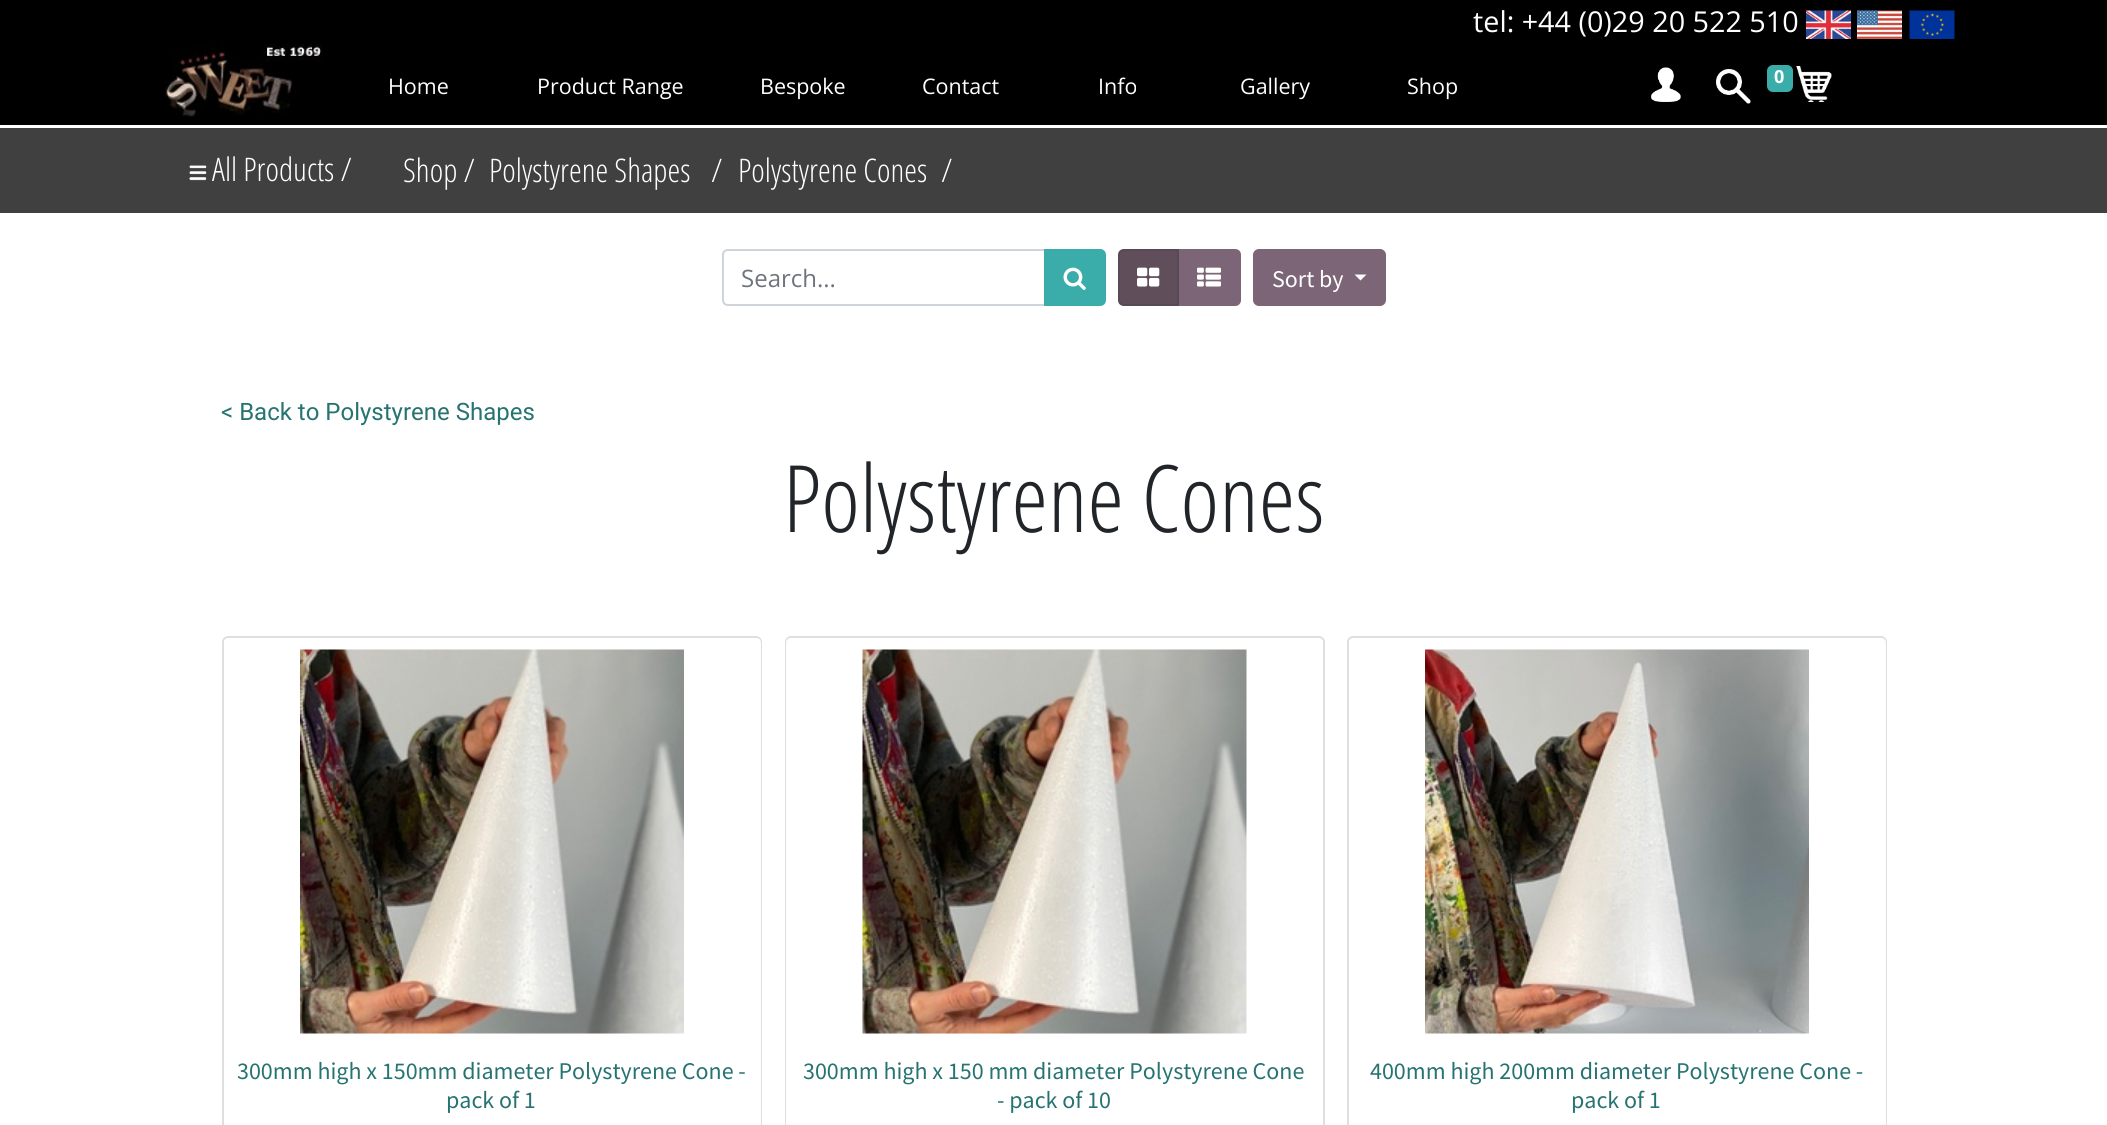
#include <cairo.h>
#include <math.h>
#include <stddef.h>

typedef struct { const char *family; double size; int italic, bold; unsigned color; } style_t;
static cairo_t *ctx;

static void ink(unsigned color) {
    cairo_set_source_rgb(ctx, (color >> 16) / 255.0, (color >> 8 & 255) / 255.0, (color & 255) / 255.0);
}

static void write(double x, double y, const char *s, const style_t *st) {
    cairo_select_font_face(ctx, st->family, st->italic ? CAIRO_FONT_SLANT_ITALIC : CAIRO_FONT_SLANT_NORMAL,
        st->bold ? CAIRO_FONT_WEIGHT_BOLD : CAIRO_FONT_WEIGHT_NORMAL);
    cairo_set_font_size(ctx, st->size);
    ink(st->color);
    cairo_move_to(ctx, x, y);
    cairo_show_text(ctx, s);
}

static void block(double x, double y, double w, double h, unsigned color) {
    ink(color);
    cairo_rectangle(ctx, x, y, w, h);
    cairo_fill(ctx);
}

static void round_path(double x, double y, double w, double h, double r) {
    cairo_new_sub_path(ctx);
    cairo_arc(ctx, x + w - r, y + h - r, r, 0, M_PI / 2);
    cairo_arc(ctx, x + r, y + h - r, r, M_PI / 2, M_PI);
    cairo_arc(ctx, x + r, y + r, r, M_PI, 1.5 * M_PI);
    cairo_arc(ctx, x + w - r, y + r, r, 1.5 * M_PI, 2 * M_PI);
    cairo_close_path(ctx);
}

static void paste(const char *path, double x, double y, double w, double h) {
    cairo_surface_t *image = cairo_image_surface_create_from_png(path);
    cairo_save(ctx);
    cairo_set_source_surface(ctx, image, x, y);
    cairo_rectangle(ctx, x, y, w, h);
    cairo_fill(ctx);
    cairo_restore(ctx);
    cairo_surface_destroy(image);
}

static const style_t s1 = {"Open Sans", 28.75, 0, 0, 0xffffff};
static const style_t s2 = {"Open Sans", 21.5, 0, 0, 0xffffff};
static const style_t s3 = {"Open Sans", 18, 0, 1, 0xffffff};
static const style_t s4 = {"Open Sans Condensed Light", 32.5, 0, 0, 0xffffff};
static const style_t s5 = {"Open Sans", 24, 0, 0, 0x6c757d};
static const style_t s6 = {"Source Sans Pro", 24, 0, 0, 0xffffff};
static const style_t s7 = {"Roboto", 24, 0, 0, 0x267372};
static const style_t s8 = {"Open Sans Condensed Light", 93, 0, 0, 0x212529};
static const style_t s9 = {"Source Sans Pro", 24, 0, 0, 0x267372};

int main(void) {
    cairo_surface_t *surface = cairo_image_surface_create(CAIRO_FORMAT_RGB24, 2107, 1125);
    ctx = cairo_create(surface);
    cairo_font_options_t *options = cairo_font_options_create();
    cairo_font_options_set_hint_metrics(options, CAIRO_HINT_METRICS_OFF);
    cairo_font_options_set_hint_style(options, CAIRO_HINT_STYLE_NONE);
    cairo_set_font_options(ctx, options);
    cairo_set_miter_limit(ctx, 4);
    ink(0xffffff);
    cairo_paint(ctx);
    block(0, 0, 2107, 125, 0x000000);
    write(1473, 32, "tel: +44 (0)29 20 522 510", &s1);
    paste("pic1.png", 1806, 10, 45, 29);
    paste("pic2.png", 1857, 10, 45, 29);
    paste("pic3.png", 1909, 10, 46, 29);
    paste("pic4.png", 164, 43, 159, 74);
    write(388, 94, "Home", &s2);
    write(537, 94, "Product Range", &s2);
    write(760, 94, "Bespoke", &s2);
    write(922, 94, "Contact", &s2);
    write(1098, 94, "Info", &s2);
    write(1240, 94, "Gallery", &s2);
    write(1407, 94, "Shop", &s2);
    paste("pic5.png", 1651, 67, 30, 35);
    paste("pic6.png", 1716, 69, 35, 35);
    paste("pic7.png", 1796, 66, 36, 36);
    ink(0x3aadaa);
    round_path(1767, 65, 26, 27, 6);
    cairo_fill(ctx);
    write(1774, 83, "0", &s3);
    block(0, 128, 2107, 85, 0x404040);
    paste("pic8.png", 189, 165, 18, 16);
    write(212, 181, "All Products /", &s4);
    write(403, 182, "Shop /", &s4);
    write(489, 182, "Polystyrene Shapes", &s4);
    write(711, 182, "/", &s4);
    write(738, 182, "Polystyrene Cones", &s4);
    write(941, 182, "/", &s4);
    cairo_new_path(ctx);
    cairo_move_to(ctx, 728, 250);
    cairo_line_to(ctx, 1045, 250);
    cairo_line_to(ctx, 1045, 305);
    cairo_line_to(ctx, 728, 305);
    cairo_curve_to(ctx, 725, 305, 723, 303, 723, 300);
    cairo_line_to(ctx, 723, 255);
    cairo_curve_to(ctx, 723, 252, 725, 250, 728, 250);
    cairo_close_path(ctx);
    ink(0xced4da);
    cairo_stroke(ctx);
    write(741, 287, "Search...", &s5);
    ink(0x3aadaa);
    cairo_new_path(ctx);
    cairo_move_to(ctx, 1045, 250);
    cairo_line_to(ctx, 1100, 250);
    cairo_curve_to(ctx, 1103, 250, 1105, 252, 1105, 255);
    cairo_line_to(ctx, 1105, 300);
    cairo_curve_to(ctx, 1105, 303, 1103, 305, 1100, 305);
    cairo_line_to(ctx, 1045, 305);
    cairo_close_path(ctx);
    cairo_fill_preserve(ctx);
    cairo_stroke(ctx);
    paste("pic9.png", 1063, 267, 23, 23);
    ink(0x7c6576);
    cairo_new_path(ctx);
    cairo_move_to(ctx, 1179, 250);
    cairo_line_to(ctx, 1235, 250);
    cairo_curve_to(ctx, 1238, 250, 1240, 252, 1240, 255);
    cairo_line_to(ctx, 1240, 300);
    cairo_curve_to(ctx, 1240, 303, 1238, 305, 1235, 305);
    cairo_line_to(ctx, 1179, 305);
    cairo_close_path(ctx);
    cairo_fill_preserve(ctx);
    cairo_stroke(ctx);
    ink(0x604e5b);
    cairo_new_path(ctx);
    cairo_move_to(ctx, 1124, 250);
    cairo_line_to(ctx, 1178, 250);
    cairo_line_to(ctx, 1178, 305);
    cairo_line_to(ctx, 1124, 305);
    cairo_curve_to(ctx, 1121, 305, 1119, 303, 1119, 300);
    cairo_line_to(ctx, 1119, 255);
    cairo_curve_to(ctx, 1119, 252, 1121, 250, 1124, 250);
    cairo_close_path(ctx);
    cairo_fill_preserve(ctx);
    ink(0x594954);
    cairo_stroke(ctx);
    paste("pic10.png", 1137, 267, 23, 20);
    paste("pic11.png", 1197, 267, 24, 20);
    ink(0x7c6576);
    round_path(1254, 250, 131, 55, 5);
    cairo_fill_preserve(ctx);
    cairo_stroke(ctx);
    write(1272, 287, "Sort by", &s6);
    cairo_new_path(ctx);
    cairo_move_to(ctx, 1354.5, 274.5);
    cairo_line_to(ctx, 1366.5, 274.5);
    cairo_line_to(ctx, 1360.5, 280.5);
    cairo_close_path(ctx);
    cairo_fill(ctx);
    write(221, 420, "< Back to Polystyrene Shapes", &s7);
    write(783, 532, "Polystyrene Cones", &s8);
    round_path(223, 637, 538, 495, 5);
    ink(0xdfdfdf);
    cairo_stroke(ctx);
    cairo_set_source_rgba(ctx, 1, 1, 1, 0.9);
    cairo_new_path(ctx);
    cairo_move_to(ctx, 229, 638);
    cairo_line_to(ctx, 756, 638);
    cairo_curve_to(ctx, 759, 638, 761, 640, 761, 643);
    cairo_line_to(ctx, 761, 1046);
    cairo_line_to(ctx, 224, 1046);
    cairo_line_to(ctx, 224, 643);
    cairo_curve_to(ctx, 224, 640, 226, 638, 229, 638);
    cairo_close_path(ctx);
    cairo_fill(ctx);
    paste("pic12.png", 300, 649, 384, 385);
    cairo_rectangle(ctx, 760, 1046, 1, 79);
    cairo_fill(ctx);
    write(237, 1079, "300mm high x 150mm diameter Polystyrene Cone -", &s9);
    write(446, 1108, "pack of 1", &s9);
    round_path(786, 637, 538, 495, 5);
    ink(0xdfdfdf);
    cairo_stroke(ctx);
    cairo_set_source_rgba(ctx, 1, 1, 1, 0.9);
    cairo_new_path(ctx);
    cairo_move_to(ctx, 791, 638);
    cairo_line_to(ctx, 1318, 638);
    cairo_curve_to(ctx, 1321, 638, 1323, 640, 1323, 643);
    cairo_line_to(ctx, 1323, 1046);
    cairo_line_to(ctx, 786, 1046);
    cairo_line_to(ctx, 786, 643);
    cairo_curve_to(ctx, 786, 640, 788, 638, 791, 638);
    cairo_close_path(ctx);
    cairo_fill(ctx);
    paste("pic13.png", 862, 649, 385, 385);
    cairo_rectangle(ctx, 786, 1046, 1, 79);
    cairo_fill(ctx);
    write(803, 1079, "300mm high x 150 mm diameter Polystyrene Cone", &s9);
    write(997, 1108, "- pack of 10", &s9);
    round_path(1348, 637, 538, 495, 5);
    ink(0xdfdfdf);
    cairo_stroke(ctx);
    cairo_set_source_rgba(ctx, 1, 1, 1, 0.9);
    cairo_new_path(ctx);
    cairo_move_to(ctx, 1354, 638);
    cairo_line_to(ctx, 1881, 638);
    cairo_curve_to(ctx, 1884, 638, 1886, 640, 1886, 643);
    cairo_line_to(ctx, 1886, 1046);
    cairo_line_to(ctx, 1349, 1046);
    cairo_line_to(ctx, 1349, 643);
    cairo_curve_to(ctx, 1349, 640, 1351, 638, 1354, 638);
    cairo_close_path(ctx);
    cairo_fill(ctx);
    paste("pic14.png", 1425, 649, 384, 385);
    cairo_rectangle(ctx, 1885, 1046, 1, 79);
    cairo_fill(ctx);
    write(1370, 1079, "400mm high 200mm diameter Polystyrene Cone -", &s9);
    write(1571, 1108, "pack of 1", &s9);
    cairo_surface_write_to_png(surface, "screenshot.png");
    cairo_font_options_destroy(options);
    cairo_destroy(ctx);
    cairo_surface_destroy(surface);
    return 0;
}
